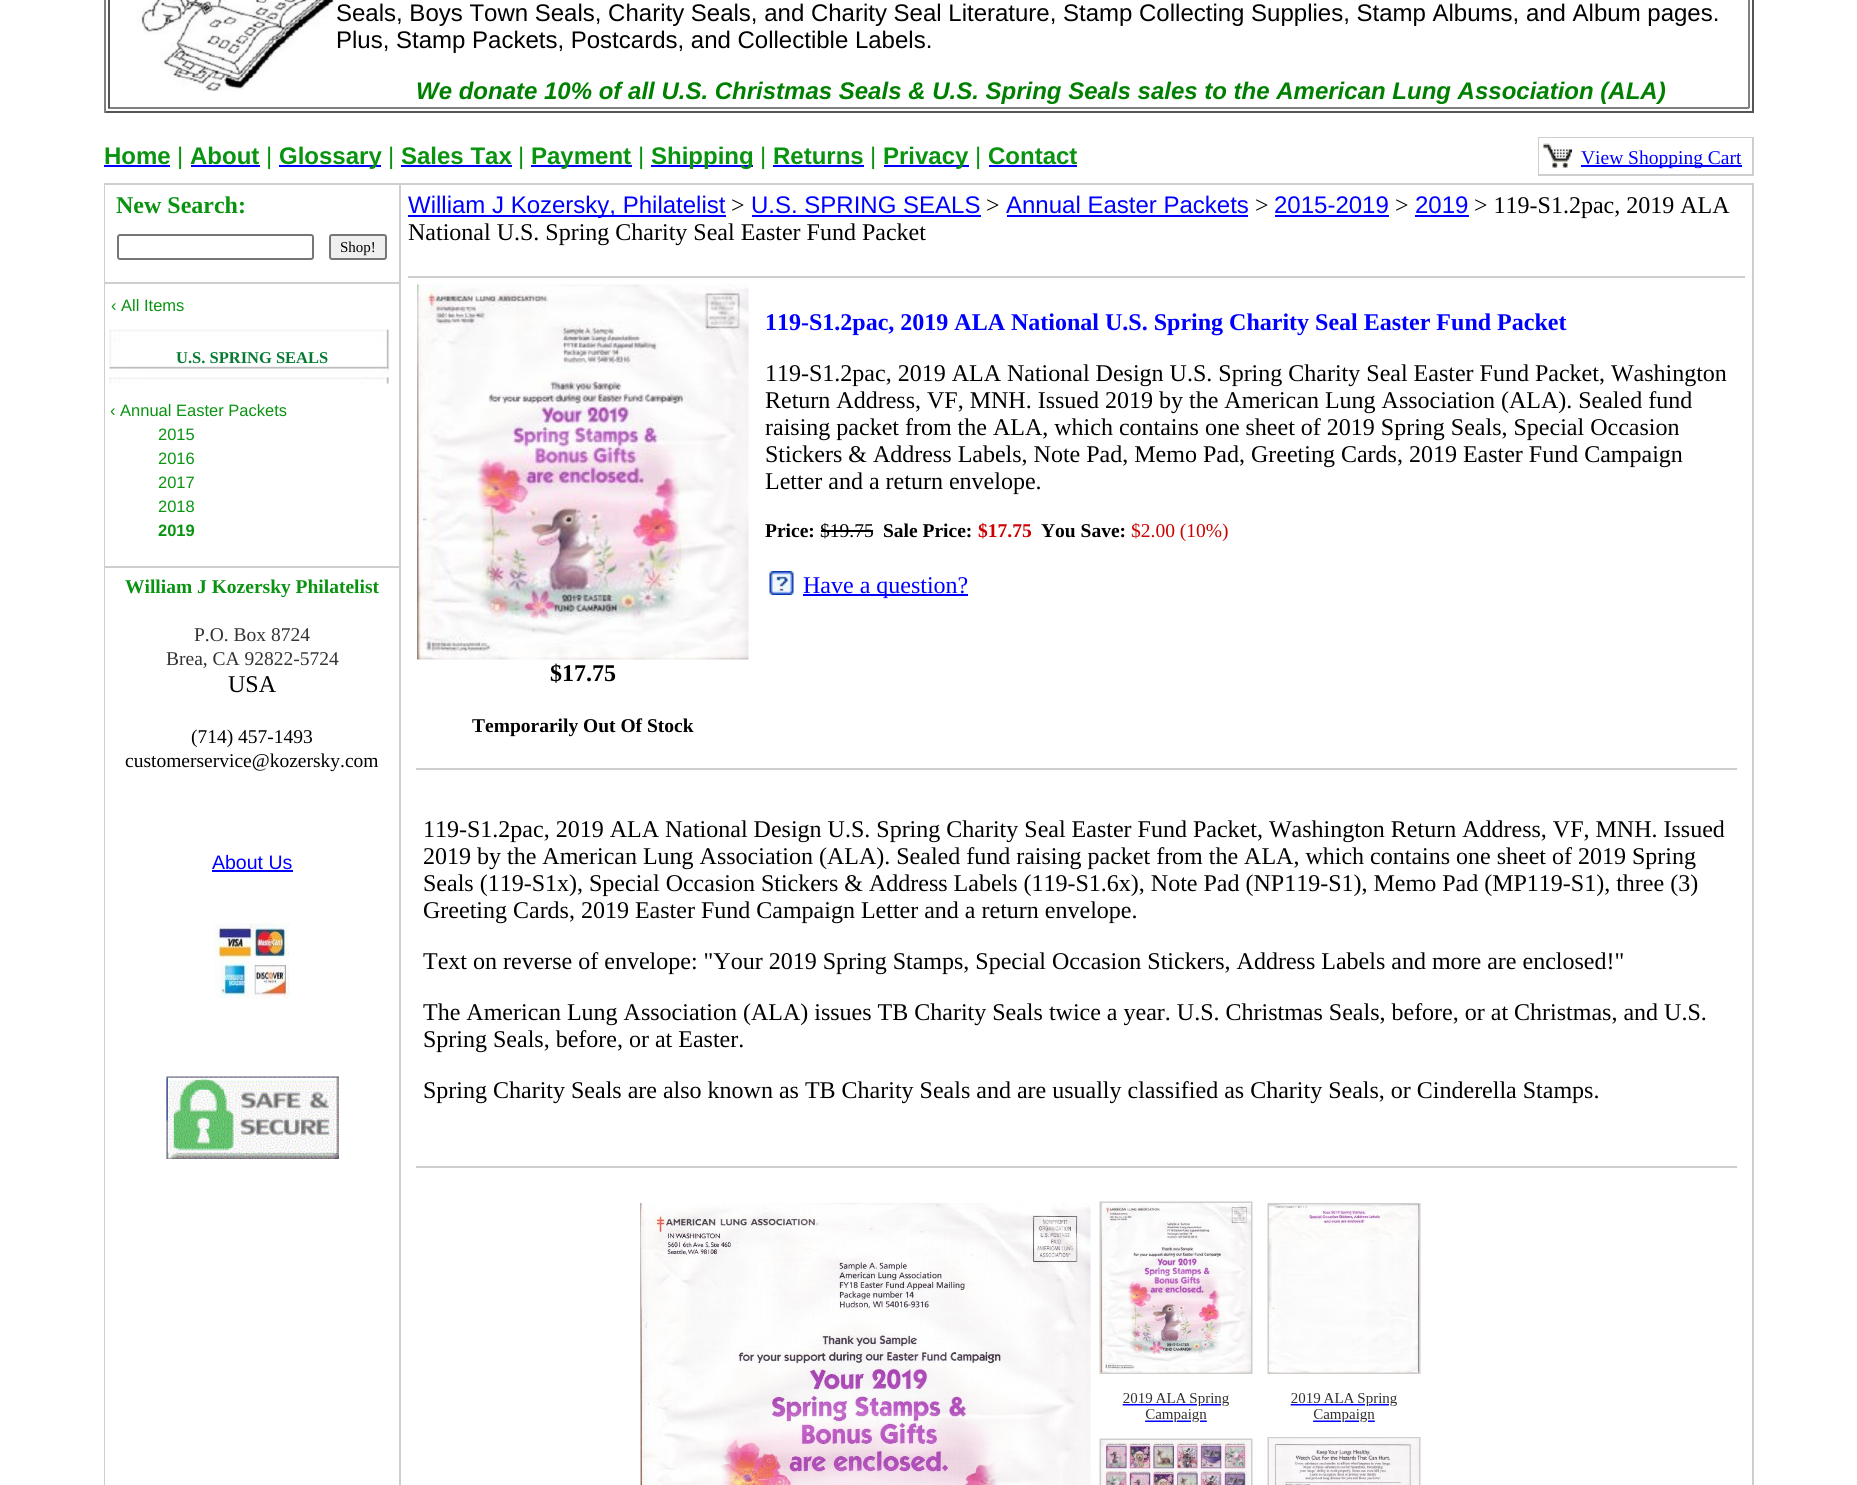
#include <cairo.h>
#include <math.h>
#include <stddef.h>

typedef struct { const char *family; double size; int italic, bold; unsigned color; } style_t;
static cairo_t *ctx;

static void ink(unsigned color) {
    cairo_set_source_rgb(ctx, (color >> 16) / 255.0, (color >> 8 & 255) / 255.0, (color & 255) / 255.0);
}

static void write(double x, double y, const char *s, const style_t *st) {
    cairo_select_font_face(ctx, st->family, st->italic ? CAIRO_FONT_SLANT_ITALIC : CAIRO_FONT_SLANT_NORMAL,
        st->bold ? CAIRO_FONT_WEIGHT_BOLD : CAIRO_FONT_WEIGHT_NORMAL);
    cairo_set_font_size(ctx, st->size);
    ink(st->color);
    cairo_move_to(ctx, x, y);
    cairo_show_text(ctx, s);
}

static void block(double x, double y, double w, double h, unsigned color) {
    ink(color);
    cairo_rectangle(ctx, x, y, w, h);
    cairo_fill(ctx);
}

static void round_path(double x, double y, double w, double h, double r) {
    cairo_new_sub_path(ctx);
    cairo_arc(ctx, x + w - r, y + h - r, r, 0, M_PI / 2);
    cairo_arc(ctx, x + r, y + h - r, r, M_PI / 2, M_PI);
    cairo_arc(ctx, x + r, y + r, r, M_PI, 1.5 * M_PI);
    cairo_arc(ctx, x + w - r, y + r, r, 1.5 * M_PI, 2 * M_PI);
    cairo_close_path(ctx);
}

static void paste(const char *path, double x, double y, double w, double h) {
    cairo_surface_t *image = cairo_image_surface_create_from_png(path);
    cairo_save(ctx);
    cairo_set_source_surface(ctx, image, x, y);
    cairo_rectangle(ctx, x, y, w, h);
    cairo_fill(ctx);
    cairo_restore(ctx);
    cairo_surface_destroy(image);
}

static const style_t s1 = {"Liberation Sans", 24, 0, 0, 0x000000};
static const style_t s2 = {"Liberation Sans", 24, 1, 1, 0x008000};
static const style_t s3 = {"Liberation Sans", 24, 0, 1, 0x099311};
static const style_t s4 = {"Liberation Sans", 24, 0, 0, 0x099311};
static const style_t s5 = {"Liberation Serif", 19.5, 0, 0, 0x0000ff};
static const style_t s6 = {"Liberation Serif", 24, 0, 1, 0x099311};
static const style_t s7 = {"Liberation Serif", 15, 0, 0, 0x000000};
static const style_t s8 = {"Liberation Sans", 16.5, 0, 0, 0x099311};
static const style_t s9 = {"Liberation Serif", 16.5, 0, 1, 0x077b33};
static const style_t s10 = {"Liberation Sans", 16.5, 0, 1, 0x099311};
static const style_t s11 = {"Liberation Serif", 19.5, 0, 1, 0x099311};
static const style_t s12 = {"Liberation Serif", 19.5, 0, 0, 0x333333};
static const style_t s13 = {"Liberation Serif", 24, 0, 0, 0x000000};
static const style_t s14 = {"Liberation Serif", 19.5, 0, 0, 0x000000};
static const style_t s15 = {"Liberation Sans", 19.5, 0, 0, 0x0000ff};
static const style_t s16 = {"Liberation Sans", 24, 0, 0, 0x0000ff};
static const style_t s17 = {"Liberation Serif", 24, 0, 1, 0x0000ff};
static const style_t s18 = {"Liberation Serif", 19.5, 0, 1, 0x000000};
static const style_t s19 = {"Liberation Serif", 19.5, 0, 1, 0xcc0000};
static const style_t s20 = {"Liberation Serif", 19.5, 0, 0, 0xcc0000};
static const style_t s21 = {"Liberation Serif", 24, 0, 0, 0x0000ff};
static const style_t s22 = {"Liberation Serif", 24, 0, 1, 0x000000};

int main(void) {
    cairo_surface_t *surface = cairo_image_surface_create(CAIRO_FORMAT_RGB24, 1857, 1485);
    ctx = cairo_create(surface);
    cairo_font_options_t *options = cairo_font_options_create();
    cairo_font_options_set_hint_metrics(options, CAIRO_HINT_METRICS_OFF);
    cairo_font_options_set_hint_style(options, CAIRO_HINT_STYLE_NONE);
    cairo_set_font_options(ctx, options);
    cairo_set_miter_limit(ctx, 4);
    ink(0xffffff);
    cairo_paint(ctx);
    block(1752, 0, 2, 113, 0x555555);
    block(104, 111, 1650, 2, 0x555555);
    block(104, 0, 2, 113, 0x808080);
    block(1748, 0, 2, 108, 0x808080);
    block(108, 107, 1641, 2, 0x808080);
    block(108, 0, 2, 108, 0x555555);
    paste("pic1.png", 137, 0, 199, 91);
    write(336, 21, "Seals, Boys Town Seals, Charity Seals, and Charity Seal Literature, Stamp Collecting Supplies, Stamp Albums, and Album pages.", &s1);
    write(336, 48, "Plus, Stamp Packets, Postcards, and Collectible Labels.", &s1);
    write(416, 99, "We donate 10% of all U.S. Christmas Seals & U.S. Spring Seals sales to the American Lung Association (ALA)", &s2);
    write(104, 164, "Home", &s3);
    block(104, 165, 66, 2, 0x0000ff);
    write(177, 164, "|", &s4);
    write(190, 164, "About", &s3);
    block(191, 165, 69, 2, 0x0000ff);
    write(266, 164, "|", &s4);
    block(279, 165, 102, 2, 0x0000ff);
    write(279, 164, "Glossary", &s3);
    write(388, 164, "|", &s4);
    write(401, 164, "Sales Tax", &s3);
    block(401, 165, 111, 2, 0x0000ff);
    write(518, 164, "|", &s4);
    block(531, 165, 101, 2, 0x0000ff);
    write(531, 164, "Payment", &s3);
    write(638, 164, "|", &s4);
    block(651, 165, 102, 2, 0x0000ff);
    write(651, 164, "Shipping", &s3);
    write(760, 164, "|", &s4);
    write(773, 164, "Returns", &s3);
    block(773, 165, 91, 2, 0x0000ff);
    write(870, 164, "|", &s4);
    block(884, 165, 85, 2, 0x0000ff);
    write(883, 164, "Privacy", &s3);
    write(975, 164, "|", &s4);
    write(988, 164, "Contact", &s3);
    block(989, 165, 88, 2, 0x0000ff);
    block(1538, 137, 216, 39, 0xcecece);
    block(1539, 138, 213, 36, 0xffffff);
    paste("pic2.png", 1543, 143, 29, 25);
    block(1581, 165, 161, 2, 0x0000ff);
    write(1581, 164, "View Shopping Cart", &s5);
    block(104, 183, 1, 1302, 0xcecece);
    block(105, 183, 294, 2, 0xcecece);
    write(116, 213, "New Search:", &s6);
    round_path(118, 235, 195, 24, 2);
    ink(0x767676);
    cairo_stroke(ctx);
    ink(0xefefef);
    round_path(330, 235, 56, 24, 2);
    cairo_fill_preserve(ctx);
    ink(0x767676);
    cairo_stroke(ctx);
    write(340, 252, "Shop!", &s7);
    block(105, 282, 294, 2, 0xcecece);
    write(111, 311, "‹ All Items", &s8);
    paste("pic3.png", 109, 329, 281, 55);
    write(176, 363, "U.S. SPRING SEALS", &s9);
    write(110, 416, "‹ Annual Easter Packets", &s8);
    write(158, 440, "2015", &s8);
    write(158, 464, "2016", &s8);
    write(158, 488, "2017", &s8);
    write(158, 512, "2018", &s8);
    write(158, 536, "2019", &s10);
    block(105, 566, 294, 2, 0xcecece);
    write(125, 593, "William J Kozersky Philatelist", &s11);
    write(194, 641, "P.O. Box 8724", &s12);
    write(166, 665, "Brea, CA 92822-5724", &s12);
    write(228, 692, "USA", &s13);
    write(191, 743, "(714) 457-1493", &s14);
    write(125, 767, "customerservice@kozersky.com", &s14);
    write(212, 869, "About Us", &s15);
    block(212, 870, 81, 2, 0x0000ff);
    paste("pic4.png", 214, 923, 76, 76);
    paste("pic5.png", 166, 1076, 173, 83);
    block(399, 183, 2, 1302, 0xcecece);
    block(401, 183, 1351, 2, 0xcecece);
    block(408, 215, 318, 2, 0x0000ff);
    write(408, 213, "William J Kozersky, Philatelist", &s16);
    write(731, 213, ">", &s13);
    write(751, 213, "U.S. SPRING SEALS", &s16);
    block(752, 215, 229, 2, 0x0000ff);
    write(986, 213, ">", &s13);
    write(1006, 213, "Annual Easter Packets", &s16);
    block(1007, 215, 241, 2, 0x0000ff);
    write(1255, 213, ">", &s13);
    write(1274, 213, "2015-2019", &s16);
    block(1275, 215, 114, 2, 0x0000ff);
    write(1395, 213, ">", &s13);
    write(1415, 213, "2019", &s16);
    block(1415, 215, 54, 2, 0x0000ff);
    write(1474, 213, "> 119-S1.2pac, 2019 ALA", &s13);
    write(408, 240, "National U.S. Spring Charity Seal Easter Fund Packet", &s13);
    block(408, 276, 1337, 2, 0xcecece);
    write(765, 330, "119-S1.2pac, 2019 ALA National U.S. Spring Charity Seal Easter Fund Packet", &s17);
    write(765, 381, "119-S1.2pac, 2019 ALA National Design U.S. Spring Charity Seal Easter Fund Packet, Washington", &s13);
    write(765, 408, "Return Address, VF, MNH. Issued 2019 by the American Lung Association (ALA). Sealed fund", &s13);
    write(765, 435, "raising packet from the ALA, which contains one sheet of 2019 Spring Seals, Special Occasion", &s13);
    write(765, 462, "Stickers & Address Labels, Note Pad, Memo Pad, Greeting Cards, 2019 Easter Fund Campaign", &s13);
    write(765, 489, "Letter and a return envelope.", &s13);
    write(765, 537, "Price:", &s18);
    write(820, 537, "$19.75", &s14);
    block(821, 530, 52, 2, 0x000000);
    write(883, 537, "Sale Price:", &s18);
    write(978, 537, "$17.75", &s19);
    write(1041, 537, "You Save:", &s18);
    write(1131, 537, "$2.00 (10%)", &s20);
    paste("pic6.png", 769, 571, 25, 24);
    block(803, 594, 165, 2, 0x0000ff);
    write(803, 593, "Have a question?", &s21);
    paste("pic7.png", 417, 284, 332, 376);
    write(550, 681, "$17.75", &s22);
    write(472, 732, "Temporarily Out Of Stock", &s18);
    block(416, 768, 1321, 2, 0xcecece);
    write(423, 837, "119-S1.2pac, 2019 ALA National Design U.S. Spring Charity Seal Easter Fund Packet, Washington Return Address, VF, MNH. Issued", &s13);
    write(423, 864, "2019 by the American Lung Association (ALA). Sealed fund raising packet from the ALA, which contains one sheet of 2019 Spring", &s13);
    write(423, 891, "Seals (119-S1x), Special Occasion Stickers & Address Labels (119-S1.6x), Note Pad (NP119-S1), Memo Pad (MP119-S1), three (3)", &s13);
    write(423, 918, "Greeting Cards, 2019 Easter Fund Campaign Letter and a return envelope.", &s13);
    write(423, 969, "Text on reverse of envelope: \"Your 2019 Spring Stamps, Special Occasion Stickers, Address Labels and more are enclosed!\"", &s13);
    write(423, 1020, "The American Lung Association (ALA) issues TB Charity Seals twice a year. U.S. Christmas Seals, before, or at Christmas, and U.S.", &s13);
    write(423, 1047, "Spring Seals, before, or at Easter.", &s13);
    write(423, 1098, "Spring Charity Seals are also known as TB Charity Seals and are usually classified as Charity Seals, or Cinderella Stamps.", &s13);
    block(416, 1166, 1321, 2, 0xcecece);
    paste("pic8.png", 640, 1201, 781, 284);
    block(1752, 183, 2, 1302, 0xcecece);
    cairo_surface_write_to_png(surface, "screenshot.png");
    cairo_font_options_destroy(options);
    cairo_destroy(ctx);
    cairo_surface_destroy(surface);
    return 0;
}
